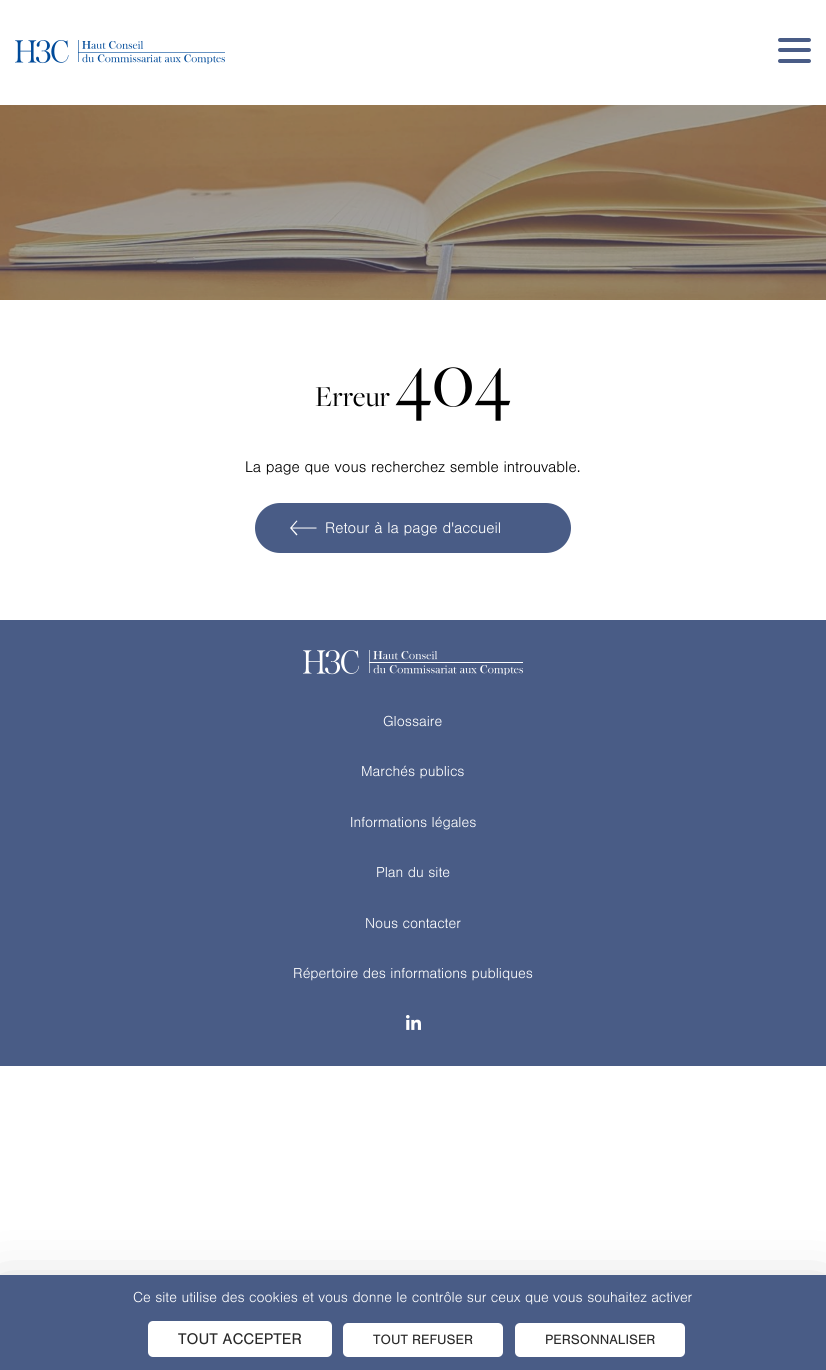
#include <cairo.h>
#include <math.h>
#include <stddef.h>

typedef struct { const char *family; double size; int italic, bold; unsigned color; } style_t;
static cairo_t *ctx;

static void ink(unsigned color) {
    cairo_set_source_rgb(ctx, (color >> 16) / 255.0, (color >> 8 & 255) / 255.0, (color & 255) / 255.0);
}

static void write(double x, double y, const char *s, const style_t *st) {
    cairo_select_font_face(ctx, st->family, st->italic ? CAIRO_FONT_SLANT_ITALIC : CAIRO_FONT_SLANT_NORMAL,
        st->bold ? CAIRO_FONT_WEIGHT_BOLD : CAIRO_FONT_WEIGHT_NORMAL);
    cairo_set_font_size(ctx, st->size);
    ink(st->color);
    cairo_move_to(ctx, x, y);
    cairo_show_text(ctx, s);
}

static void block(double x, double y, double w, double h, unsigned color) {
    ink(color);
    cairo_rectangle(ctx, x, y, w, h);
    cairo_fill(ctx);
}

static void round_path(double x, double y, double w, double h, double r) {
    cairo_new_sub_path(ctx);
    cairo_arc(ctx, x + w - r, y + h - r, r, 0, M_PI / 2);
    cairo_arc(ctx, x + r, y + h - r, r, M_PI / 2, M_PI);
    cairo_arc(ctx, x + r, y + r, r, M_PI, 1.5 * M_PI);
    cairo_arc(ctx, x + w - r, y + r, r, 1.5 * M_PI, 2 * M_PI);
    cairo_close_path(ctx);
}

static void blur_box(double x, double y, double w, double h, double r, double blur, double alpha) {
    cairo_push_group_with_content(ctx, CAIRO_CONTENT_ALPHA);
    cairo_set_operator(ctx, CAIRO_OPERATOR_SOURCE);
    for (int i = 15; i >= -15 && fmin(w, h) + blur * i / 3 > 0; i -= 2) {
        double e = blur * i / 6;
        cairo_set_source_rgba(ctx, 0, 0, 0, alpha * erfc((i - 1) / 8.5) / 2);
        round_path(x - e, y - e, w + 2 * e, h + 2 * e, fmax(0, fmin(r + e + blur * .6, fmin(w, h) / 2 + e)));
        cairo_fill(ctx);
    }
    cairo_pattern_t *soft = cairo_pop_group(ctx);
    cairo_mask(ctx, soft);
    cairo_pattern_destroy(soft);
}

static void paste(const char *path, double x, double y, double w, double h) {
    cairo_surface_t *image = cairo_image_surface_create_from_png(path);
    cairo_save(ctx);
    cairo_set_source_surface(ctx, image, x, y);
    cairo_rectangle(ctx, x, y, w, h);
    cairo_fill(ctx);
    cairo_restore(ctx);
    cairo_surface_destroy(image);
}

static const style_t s1 = {"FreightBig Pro", 30, 0, 0, 0x000000};
static const style_t s2 = {"FreightBig Pro", 80, 0, 0, 0x000000};
static const style_t s3 = {"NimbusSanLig", 16, 0, 0, 0x000000};
static const style_t s4 = {"NimbusSanLig", 16, 0, 0, 0xffffff};
static const style_t s5 = {"NimbusSanLig", 15, 0, 0, 0xffffff};
static const style_t s6 = {"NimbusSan", 16, 0, 0, 0x292929};
static const style_t s7 = {"NimbusSan", 14, 0, 0, 0x292929};

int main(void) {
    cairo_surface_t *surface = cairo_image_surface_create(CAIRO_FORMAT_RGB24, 826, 1370);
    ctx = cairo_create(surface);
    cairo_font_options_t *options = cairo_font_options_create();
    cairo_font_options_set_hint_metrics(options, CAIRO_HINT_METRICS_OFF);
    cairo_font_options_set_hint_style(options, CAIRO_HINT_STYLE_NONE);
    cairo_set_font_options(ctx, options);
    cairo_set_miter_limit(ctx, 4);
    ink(0xffffff);
    cairo_paint(ctx);
    paste("pic1.png", 15, 40, 210, 24);
    ink(0x495c86);
    round_path(778, 38, 33, 4, 2);
    cairo_fill(ctx);
    round_path(778, 48, 33, 4, 2);
    cairo_fill(ctx);
    round_path(778, 59, 33, 4, 2);
    cairo_fill(ctx);
    paste("pic2.png", 0, 105, 826, 195);
    write(315, 406, "Erreur", &s1);
    write(395, 406, "404", &s2);
    write(245, 472, "La page que vous recherchez semble introuvable.", &s3);
    ink(0x495c86);
    round_path(255, 503, 316, 50, 25);
    cairo_fill(ctx);
    ink(0xffffff);
    cairo_new_path(ctx);
    cairo_move_to(ctx, 296.5, 535.5);
    cairo_line_to(ctx, 297.5, 534.5);
    cairo_line_to(ctx, 292, 528.5);
    cairo_line_to(ctx, 316.5, 528.5);
    cairo_line_to(ctx, 316.5, 527.5);
    cairo_line_to(ctx, 292, 527.5);
    cairo_line_to(ctx, 297.5, 521);
    cairo_line_to(ctx, 296.5, 520.5);
    cairo_line_to(ctx, 290, 528);
    cairo_close_path(ctx);
    cairo_fill(ctx);
    write(325, 533, "Retour à la page d'accueil", &s4);
    block(0, 620, 826, 446, 0x495c86);
    paste("pic3.png", 303, 650, 220, 25);
    write(383, 726, "Glossaire", &s5);
    write(361, 776, "Marchés publics", &s5);
    write(350, 827, "Informations légales", &s5);
    write(376, 877, "Plan du site", &s5);
    write(365, 928, "Nous contacter", &s5);
    write(293, 978, "Répertoire des informations publiques", &s5);
    paste("pic4.png", 406, 1015, 15, 15);
    ink(0x000000);
    blur_box(0, 1295, 826, 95, 0, 30, 0.25);
    block(0, 1275, 826, 95, 0x495c86);
    write(133, 1302, "Ce site utilise des cookies et vous donne le contrôle sur ceux que vous souhaitez activer", &s5);
    round_path(148, 1321, 184, 36, 5);
    cairo_fill(ctx);
    write(178, 1344, "TOUT ACCEPTER", &s6);
    ink(0xffffff);
    round_path(343, 1323, 160, 34, 5);
    cairo_fill(ctx);
    write(373, 1344, "TOUT REFUSER", &s7);
    ink(0xffffff);
    round_path(515, 1323, 170, 34, 5);
    cairo_fill(ctx);
    write(545, 1344, "PERSONNALISER", &s7);
    cairo_surface_write_to_png(surface, "screenshot.png");
    cairo_font_options_destroy(options);
    cairo_destroy(ctx);
    cairo_surface_destroy(surface);
    return 0;
}
